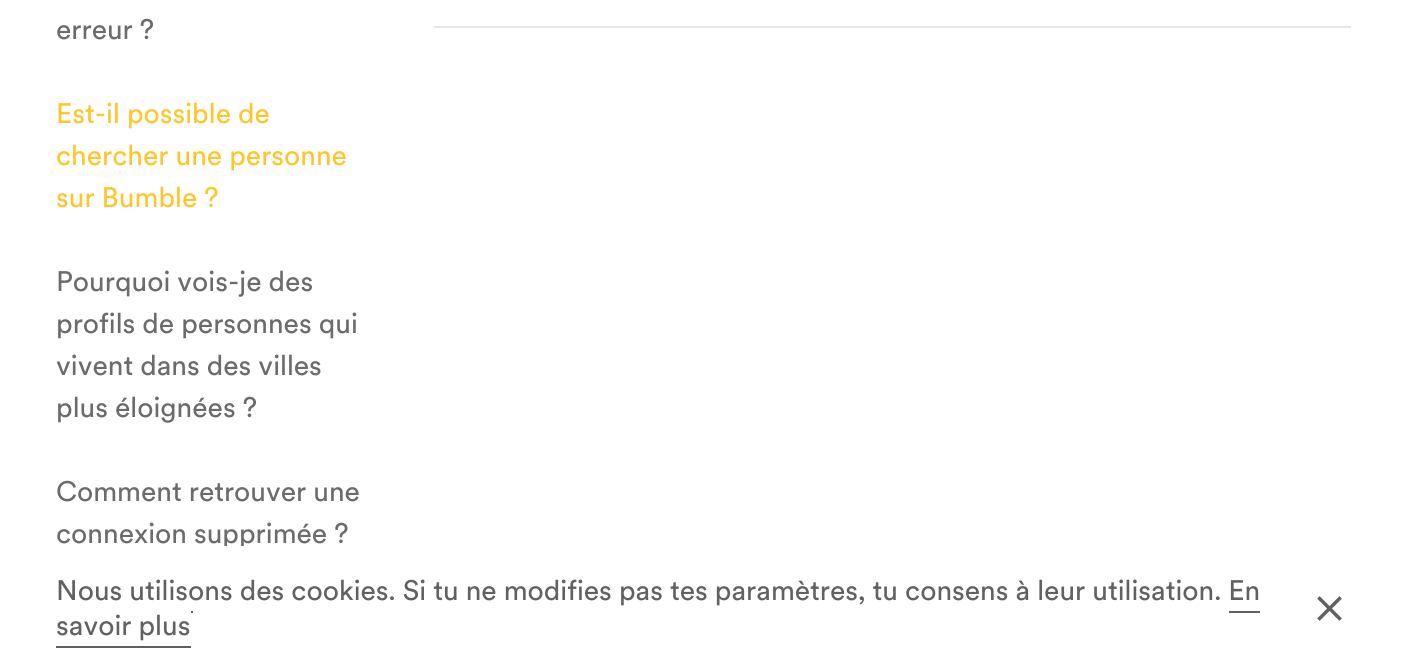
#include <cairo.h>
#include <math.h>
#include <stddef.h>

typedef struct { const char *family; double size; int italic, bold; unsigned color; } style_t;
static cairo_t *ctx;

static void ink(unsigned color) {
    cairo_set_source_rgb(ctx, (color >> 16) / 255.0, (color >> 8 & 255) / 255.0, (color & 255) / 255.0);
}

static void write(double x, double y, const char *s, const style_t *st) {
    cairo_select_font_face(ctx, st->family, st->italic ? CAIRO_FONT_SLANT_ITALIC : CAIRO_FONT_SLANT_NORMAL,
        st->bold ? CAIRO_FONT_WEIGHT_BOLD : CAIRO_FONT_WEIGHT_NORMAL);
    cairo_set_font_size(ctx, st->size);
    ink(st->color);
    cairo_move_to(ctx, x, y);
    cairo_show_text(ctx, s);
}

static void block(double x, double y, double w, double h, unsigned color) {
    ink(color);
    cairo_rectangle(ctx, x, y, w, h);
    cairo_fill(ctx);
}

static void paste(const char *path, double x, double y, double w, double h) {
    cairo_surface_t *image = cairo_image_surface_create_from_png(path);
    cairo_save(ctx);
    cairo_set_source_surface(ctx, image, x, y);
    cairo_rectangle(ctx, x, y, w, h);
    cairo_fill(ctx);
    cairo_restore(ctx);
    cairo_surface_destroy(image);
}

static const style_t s1 = {"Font", 28, 0, 0, 0x6b6b6b};
static const style_t s2 = {"Font", 28, 0, 0, 0xffc629};
static const style_t s3 = {"Font", 28, 0, 0, 0x616161};

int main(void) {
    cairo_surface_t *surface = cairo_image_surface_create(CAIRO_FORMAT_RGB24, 1406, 672);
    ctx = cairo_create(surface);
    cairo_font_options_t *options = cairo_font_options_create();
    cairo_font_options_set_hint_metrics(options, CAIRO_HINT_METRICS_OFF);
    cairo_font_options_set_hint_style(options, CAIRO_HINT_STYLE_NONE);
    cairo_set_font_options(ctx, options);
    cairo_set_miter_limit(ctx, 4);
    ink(0xffffff);
    cairo_paint(ctx);
    write(56, 39, "erreur ?", &s1);
    write(56, 123, "Est-il possible de", &s2);
    write(56, 165, "chercher une personne", &s2);
    write(56, 207, "sur Bumble ?", &s2);
    write(56, 291, "Pourquoi vois-je des", &s1);
    write(56, 333, "profils de personnes qui", &s1);
    write(56, 375, "vivent dans des villes", &s1);
    write(56, 417, "plus éloignées ?", &s1);
    write(56, 501, "Comment retrouver une", &s1);
    write(56, 543, "connexion supprimée ?", &s1);
    block(434, 26, 917, 2, 0xe7e7e7);
    block(224, 546, 20, 3, 0xffffff);
    write(56, 600, "Nous utilisons des cookies. Si tu ne modifies pas tes paramètres, tu consens à leur utilisation. En", &s3);
    write(56, 635, "savoir plus", &s3);
    block(1229, 611, 31, 2, 0x616161);
    block(56, 646, 135, 2, 0x616161);
    block(191, 611, 2, 2, 0x616161);
    paste("pic1.png", 1317, 596, 25, 25);
    cairo_surface_write_to_png(surface, "screenshot.png");
    cairo_font_options_destroy(options);
    cairo_destroy(ctx);
    cairo_surface_destroy(surface);
    return 0;
}
